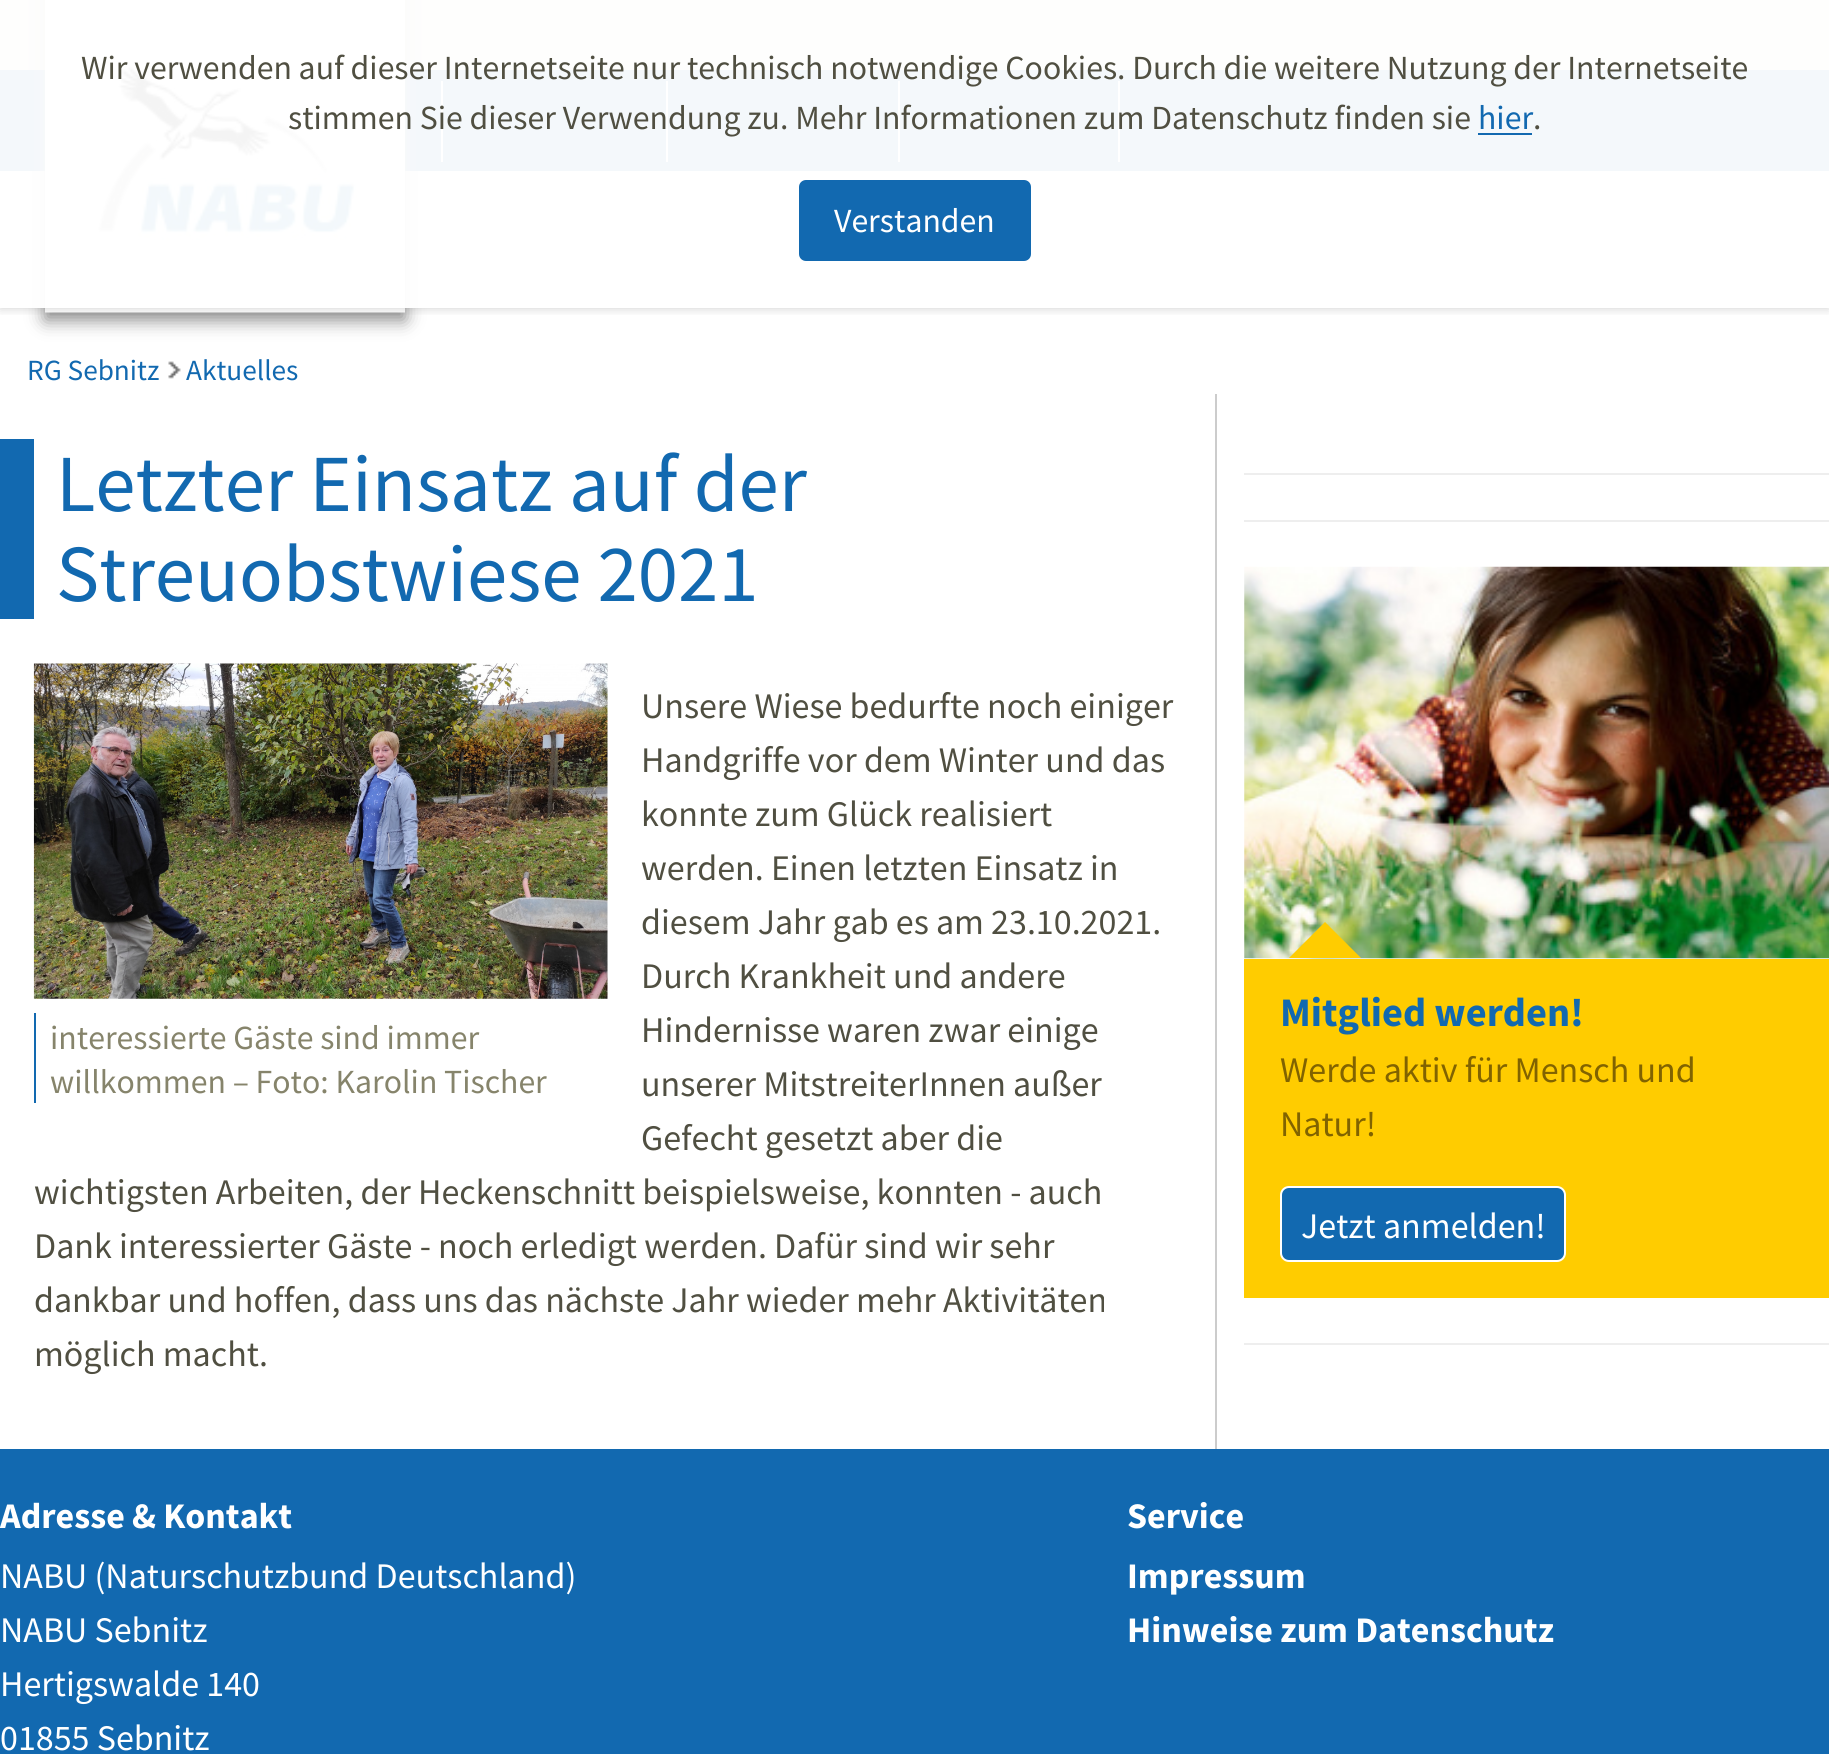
#include <cairo.h>
#include <math.h>
#include <stddef.h>

typedef struct { const char *family; double size; int italic, bold; unsigned color; } style_t;
static cairo_t *ctx;

static void ink(unsigned color) {
    cairo_set_source_rgb(ctx, (color >> 16) / 255.0, (color >> 8 & 255) / 255.0, (color & 255) / 255.0);
}

static void write(double x, double y, const char *s, const style_t *st) {
    cairo_select_font_face(ctx, st->family, st->italic ? CAIRO_FONT_SLANT_ITALIC : CAIRO_FONT_SLANT_NORMAL,
        st->bold ? CAIRO_FONT_WEIGHT_BOLD : CAIRO_FONT_WEIGHT_NORMAL);
    cairo_set_font_size(ctx, st->size);
    ink(st->color);
    cairo_move_to(ctx, x, y);
    cairo_show_text(ctx, s);
}

static void block(double x, double y, double w, double h, unsigned color) {
    ink(color);
    cairo_rectangle(ctx, x, y, w, h);
    cairo_fill(ctx);
}

static void round_path(double x, double y, double w, double h, double r) {
    cairo_new_sub_path(ctx);
    cairo_arc(ctx, x + w - r, y + h - r, r, 0, M_PI / 2);
    cairo_arc(ctx, x + r, y + h - r, r, M_PI / 2, M_PI);
    cairo_arc(ctx, x + r, y + r, r, M_PI, 1.5 * M_PI);
    cairo_arc(ctx, x + w - r, y + r, r, 1.5 * M_PI, 2 * M_PI);
    cairo_close_path(ctx);
}

static void blur_box(double x, double y, double w, double h, double r, double blur, double alpha) {
    cairo_push_group_with_content(ctx, CAIRO_CONTENT_ALPHA);
    cairo_set_operator(ctx, CAIRO_OPERATOR_SOURCE);
    for (int i = 15; i >= -15 && fmin(w, h) + blur * i / 3 > 0; i -= 2) {
        double e = blur * i / 6;
        cairo_set_source_rgba(ctx, 0, 0, 0, alpha * erfc((i - 1) / 8.5) / 2);
        round_path(x - e, y - e, w + 2 * e, h + 2 * e, fmax(0, fmin(r + e + blur * .6, fmin(w, h) / 2 + e)));
        cairo_fill(ctx);
    }
    cairo_pattern_t *soft = cairo_pop_group(ctx);
    cairo_mask(ctx, soft);
    cairo_pattern_destroy(soft);
}

static void paste(const char *path, double x, double y, double w, double h) {
    cairo_surface_t *image = cairo_image_surface_create_from_png(path);
    cairo_save(ctx);
    cairo_set_source_surface(ctx, image, x, y);
    cairo_rectangle(ctx, x, y, w, h);
    cairo_fill(ctx);
    cairo_restore(ctx);
    cairo_surface_destroy(image);
}

static const style_t s1 = {"Source Sans Pro", 33.75, 0, 0, 0x504f41};
static const style_t s2 = {"Source Sans Pro", 33.75, 0, 0, 0x1269b0};
static const style_t s3 = {"Source Sans Pro", 33.75, 0, 0, 0xffffff};
static const style_t s4 = {"Source Sans Pro", 29.25, 0, 0, 0x1269b0};
static const style_t s5 = {"Source Sans Pro", 81, 0, 0, 0x1269b0};
static const style_t s6 = {"Source Sans Pro", 36, 0, 0, 0x504f41};
static const style_t s7 = {"Source Sans Pro", 33.75, 0, 0, 0x86846b};
static const style_t s8 = {"Source Sans Pro", 40.5, 0, 1, 0x1269b0};
static const style_t s9 = {"Source Sans Pro", 36, 0, 0, 0x816300};
static const style_t s10 = {"Source Sans Pro", 36, 0, 0, 0xffffff};
static const style_t s11 = {"Source Sans Pro", 36, 0, 1, 0xffffff};

int main(void) {
    cairo_surface_t *surface = cairo_image_surface_create(CAIRO_FORMAT_RGB24, 1829, 1754);
    ctx = cairo_create(surface);
    cairo_font_options_t *options = cairo_font_options_create();
    cairo_font_options_set_hint_metrics(options, CAIRO_HINT_METRICS_OFF);
    cairo_font_options_set_hint_style(options, CAIRO_HINT_STYLE_NONE);
    cairo_set_font_options(ctx, options);
    cairo_set_miter_limit(ctx, 4);
    ink(0xffffff);
    cairo_paint(ctx);
    block(0, 0, 1829, 70, 0xe3e2d4);
    block(0, 70, 1829, 101, 0x1269b0);
    ink(0x888888);
    blur_box(45, -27, 360, 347, 0, 9, 1);
    paste("pic1.png", 45, 0, 360, 313);
    block(441, 81, 2, 81, 0xffffff);
    block(666, 81, 2, 81, 0xffffff);
    block(898, 81, 2, 81, 0xffffff);
    block(1118, 81, 2, 81, 0xffffff);
    cairo_save(ctx);
    cairo_rectangle(ctx, 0, 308, 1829, 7);
    cairo_clip(ctx);
    ink(0x000000);
    blur_box(0, 0, 1829, 308, 0, 5.5, 0.2);
    cairo_restore(ctx);
    cairo_set_source_rgba(ctx, 1, 1, 1, 0.95);
    cairo_rectangle(ctx, 0, 0, 1829, 308);
    cairo_fill(ctx);
    write(81, 79, "Wir verwenden auf dieser Internetseite nur technisch notwendige Cookies. Durch die weitere Nutzung der Internetseite", &s1);
    write(288, 129, "stimmen Sie dieser Verwendung zu. Mehr Informationen zum Datenschutz finden sie", &s1);
    write(1478, 129, "hier", &s2);
    block(1478, 133, 54, 2, 0x1269b0);
    write(1533, 129, ".", &s1);
    ink(0x1269b0);
    round_path(798, 179, 234, 83, 8);
    cairo_fill_preserve(ctx);
    ink(0xffffff);
    cairo_stroke(ctx);
    write(834, 232, "Verstanden", &s3);
    write(27, 380, "RG Sebnitz", &s4);
    paste("pic2.png", 168, 361, 13, 18);
    write(186, 380, "Aktuelles", &s4);
    block(0, 439, 34, 180, 0x1269b0);
    write(56, 511, "Letzter Einsatz auf der", &s5);
    write(56, 601, "Streuobstwiese 2021", &s5);
    write(641, 718, "Unsere Wiese bedurfte noch einiger", &s6);
    write(641, 772, "Handgriffe vor dem Winter und das", &s6);
    write(641, 826, "konnte zum Glück realisiert", &s6);
    write(641, 880, "werden. Einen letzten Einsatz in", &s6);
    write(641, 934, "diesem Jahr gab es am 23.10.2021.", &s6);
    write(641, 988, "Durch Krankheit und andere", &s6);
    write(641, 1042, "Hindernisse waren zwar einige", &s6);
    write(641, 1096, "unserer MitstreiterInnen außer", &s6);
    write(641, 1150, "Gefecht gesetzt aber die", &s6);
    write(34, 1204, "wichtigsten Arbeiten, der Heckenschnitt beispielsweise, konnten - auch", &s6);
    write(34, 1258, "Dank interessierter Gäste - noch erledigt werden. Dafür sind wir sehr", &s6);
    write(34, 1312, "dankbar und hoffen, dass uns das nächste Jahr wieder mehr Aktivitäten", &s6);
    write(34, 1366, "möglich macht.", &s6);
    paste("pic3.png", 33, 663, 575, 336);
    block(34, 1013, 2, 90, 0x1269b0);
    write(50, 1049, "interessierte Gäste sind immer", &s7);
    write(50, 1093, "willkommen – Foto: Karolin Tischer", &s7);
    block(1215, 394, 2, 1055, 0xcccccc);
    block(1244, 473, 585, 2, 0xeeeeee);
    block(1244, 520, 585, 2, 0xeeeeee);
    paste("pic4.png", 1244, 566, 585, 393);
    block(1244, 959, 585, 339, 0xffcc00);
    cairo_new_path(ctx);
    cairo_move_to(ctx, 1361, 958);
    cairo_line_to(ctx, 1289, 958);
    cairo_line_to(ctx, 1325, 922);
    cairo_close_path(ctx);
    cairo_fill(ctx);
    write(1280, 1026, "Mitglied werden!", &s8);
    write(1280, 1082, "Werde aktiv für Mensch und", &s9);
    write(1280, 1136, "Natur!", &s9);
    ink(0x1269b0);
    round_path(1281, 1187, 284, 74, 8);
    cairo_fill_preserve(ctx);
    ink(0xffffff);
    cairo_stroke(ctx);
    write(1301, 1238, "Jetzt anmelden!", &s10);
    block(1244, 1343, 585, 2, 0xeeeeee);
    block(0, 1449, 1829, 305, 0x1269b0);
    write(0, 1528, "Adresse & Kontakt", &s11);
    write(0, 1588, "NABU (Naturschutzbund Deutschland)", &s10);
    write(0, 1642, "NABU Sebnitz", &s10);
    write(0, 1696, "Hertigswalde 140", &s10);
    write(0, 1750, "01855 Sebnitz", &s10);
    write(1127, 1528, "Service", &s11);
    write(1127, 1588, "Impressum", &s11);
    write(1127, 1642, "Hinweise zum Datenschutz", &s11);
    cairo_surface_write_to_png(surface, "screenshot.png");
    cairo_font_options_destroy(options);
    cairo_destroy(ctx);
    cairo_surface_destroy(surface);
    return 0;
}
